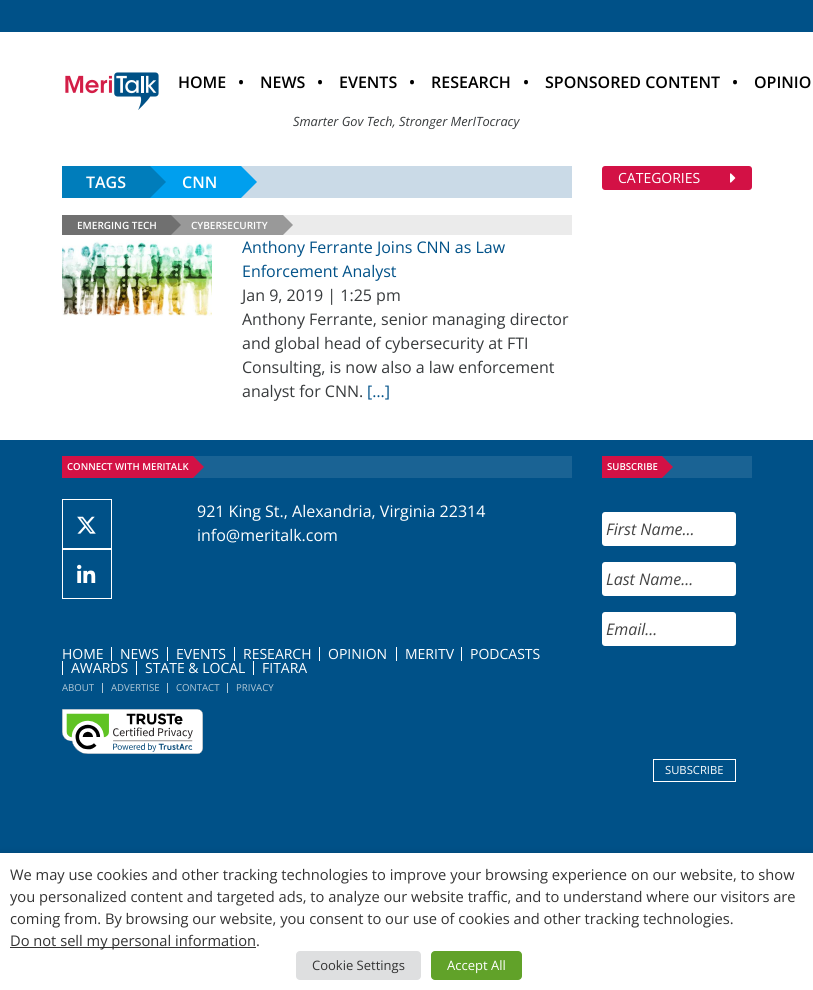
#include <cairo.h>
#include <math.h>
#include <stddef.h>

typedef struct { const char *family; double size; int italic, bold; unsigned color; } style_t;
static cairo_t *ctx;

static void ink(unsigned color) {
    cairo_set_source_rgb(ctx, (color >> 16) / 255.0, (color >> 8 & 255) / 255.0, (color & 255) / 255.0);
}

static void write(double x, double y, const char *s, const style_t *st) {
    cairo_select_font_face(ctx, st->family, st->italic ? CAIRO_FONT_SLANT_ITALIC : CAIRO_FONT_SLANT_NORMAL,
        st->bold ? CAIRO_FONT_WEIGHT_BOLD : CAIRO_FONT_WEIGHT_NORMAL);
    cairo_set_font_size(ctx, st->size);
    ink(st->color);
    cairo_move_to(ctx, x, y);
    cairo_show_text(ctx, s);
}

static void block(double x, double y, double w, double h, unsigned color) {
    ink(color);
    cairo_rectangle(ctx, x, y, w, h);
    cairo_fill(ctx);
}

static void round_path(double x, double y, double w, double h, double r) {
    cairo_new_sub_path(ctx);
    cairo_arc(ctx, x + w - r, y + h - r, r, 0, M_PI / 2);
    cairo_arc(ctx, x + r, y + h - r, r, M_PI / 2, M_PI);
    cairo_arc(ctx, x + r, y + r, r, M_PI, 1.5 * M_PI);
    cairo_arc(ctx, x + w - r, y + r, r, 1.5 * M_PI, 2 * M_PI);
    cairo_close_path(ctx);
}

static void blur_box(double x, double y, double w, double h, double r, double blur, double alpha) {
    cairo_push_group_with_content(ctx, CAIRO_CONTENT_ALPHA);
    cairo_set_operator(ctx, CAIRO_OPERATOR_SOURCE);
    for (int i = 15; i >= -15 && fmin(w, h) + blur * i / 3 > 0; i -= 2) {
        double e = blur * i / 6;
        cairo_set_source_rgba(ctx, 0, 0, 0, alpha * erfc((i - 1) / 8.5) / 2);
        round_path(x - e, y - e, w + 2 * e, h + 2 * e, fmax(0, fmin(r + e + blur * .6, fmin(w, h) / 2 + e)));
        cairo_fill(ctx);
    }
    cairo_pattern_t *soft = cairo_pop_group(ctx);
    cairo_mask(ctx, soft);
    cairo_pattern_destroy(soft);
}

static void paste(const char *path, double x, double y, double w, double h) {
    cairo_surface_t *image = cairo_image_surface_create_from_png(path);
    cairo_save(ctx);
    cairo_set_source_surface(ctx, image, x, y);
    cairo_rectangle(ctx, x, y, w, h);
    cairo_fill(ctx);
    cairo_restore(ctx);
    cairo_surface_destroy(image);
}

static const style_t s1 = {"Open Sans SemiBold", 16, 0, 0, 0x000000};
static const style_t s2 = {"Open Sans", 12.75, 1, 0, 0x373a3c};
static const style_t s3 = {"Open Sans SemiBold", 16, 0, 0, 0xffffff};
static const style_t s4 = {"Open Sans SemiBold", 10, 0, 0, 0xffffff};
static const style_t s5 = {"Open Sans", 16, 0, 0, 0x005188};
static const style_t s6 = {"Open Sans", 16, 0, 0, 0x373a3c};
static const style_t s7 = {"Open Sans", 14, 0, 0, 0xffffff};
static const style_t s8 = {"Open Sans SemiBold", 9.6, 0, 0, 0xffffff};
static const style_t s9 = {"Open Sans", 16, 0, 0, 0xffffff};
static const style_t s10 = {"Open Sans", 9.6, 0, 0, 0xb2c9d7};
static const style_t s11 = {"Open Sans", 16, 1, 0, 0x434343};
static const style_t s12 = {"Open Sans", 11.25, 0, 0, 0xffffff};
static const style_t s13 = {"Open Sans", 14.67, 0, 0, 0x333333};
static const style_t s14 = {"Open Sans", 13, 0, 0, 0x333333};
static const style_t s15 = {"Open Sans", 13, 0, 0, 0xffffff};

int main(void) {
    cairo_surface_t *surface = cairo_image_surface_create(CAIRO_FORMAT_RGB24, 813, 990);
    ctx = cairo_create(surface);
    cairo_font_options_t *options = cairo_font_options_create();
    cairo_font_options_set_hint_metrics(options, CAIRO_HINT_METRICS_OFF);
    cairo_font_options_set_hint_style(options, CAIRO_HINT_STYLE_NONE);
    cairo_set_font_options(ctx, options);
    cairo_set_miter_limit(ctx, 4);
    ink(0xffffff);
    cairo_paint(ctx);
    block(0, 0, 813, 32, 0x005188);
    paste("pic1.png", 65, 72, 94, 38);
    write(178, 88, "HOME", &s1);
    write(238, 88, "•", &s1);
    write(260, 88, "NEWS", &s1);
    write(317, 88, "•", &s1);
    write(339, 88, "EVENTS", &s1);
    write(409, 88, "•", &s1);
    write(431, 88, "RESEARCH", &s1);
    write(523, 88, "•", &s1);
    write(545, 88, "SPONSORED CONTENT", &s1);
    write(732, 88, "•", &s1);
    write(754, 88, "OPINIO", &s1);
    write(293, 126, "Smarter Gov Tech, Stronger MerITocracy", &s2);
    block(241, 166, 331, 32, 0xcadae7);
    block(62, 166, 88, 32, 0x007dbb);
    write(86, 188, "TAGS", &s3);
    block(150, 166, 91, 32, 0x009fee);
    ink(0x007dbb);
    cairo_new_path(ctx);
    cairo_move_to(ctx, 150, 198);
    cairo_line_to(ctx, 150, 166);
    cairo_line_to(ctx, 166, 182);
    cairo_close_path(ctx);
    cairo_fill(ctx);
    write(182, 188, "CNN", &s3);
    ink(0x009fee);
    cairo_new_path(ctx);
    cairo_move_to(ctx, 241, 198);
    cairo_line_to(ctx, 241, 166);
    cairo_line_to(ctx, 257, 182);
    cairo_close_path(ctx);
    cairo_fill(ctx);
    block(283, 215, 289, 20, 0xebebeb);
    block(62, 215, 109, 20, 0x707070);
    write(77, 229, "EMERGING TECH", &s4);
    block(171, 215, 112, 20, 0x999999);
    ink(0x707070);
    cairo_new_path(ctx);
    cairo_move_to(ctx, 171, 235);
    cairo_line_to(ctx, 171, 215);
    cairo_line_to(ctx, 181, 225);
    cairo_close_path(ctx);
    cairo_fill(ctx);
    write(191, 229, "CYBERSECURITY", &s4);
    ink(0x999999);
    cairo_new_path(ctx);
    cairo_move_to(ctx, 283, 235);
    cairo_line_to(ctx, 283, 215);
    cairo_line_to(ctx, 293, 225);
    cairo_close_path(ctx);
    cairo_fill(ctx);
    paste("pic2.png", 62, 240, 150, 76);
    write(242, 253, "Anthony Ferrante Joins CNN as Law", &s5);
    write(242, 277, "Enforcement Analyst", &s5);
    write(242, 301, "Jan 9, 2019 | 1:25 pm", &s6);
    write(242, 325, "Anthony Ferrante, senior managing director", &s6);
    write(242, 349, "and global head of cybersecurity at FTI", &s6);
    write(242, 373, "Consulting, is now also a law enforcement", &s6);
    write(242, 397, "analyst for CNN.", &s6);
    write(367, 397, "[…]", &s5);
    ink(0xd31145);
    round_path(602, 166, 150, 24, 3);
    cairo_fill(ctx);
    write(618, 183, "CATEGORIES", &s7);
    paste("pic3.png", 730, 173, 6, 10);
    block(0, 440, 813, 413, 0x005188);
    block(193, 456, 379, 22, 0x1a6394);
    block(62, 456, 131, 22, 0xd31145);
    write(67, 470, "CONNECT WITH MERITALK", &s8);
    ink(0xd31145);
    cairo_new_path(ctx);
    cairo_move_to(ctx, 193, 478);
    cairo_line_to(ctx, 193, 456);
    cairo_line_to(ctx, 204, 467);
    cairo_close_path(ctx);
    cairo_fill(ctx);
    cairo_rectangle(ctx, 62.5, 499.5, 49, 49);
    ink(0xffffff);
    cairo_set_line_width(ctx, 1);
    cairo_stroke(ctx);
    paste("pic4.png", 77, 516, 19, 18);
    cairo_rectangle(ctx, 62.5, 549.5, 49, 49);
    cairo_stroke(ctx);
    paste("pic5.png", 77, 564, 19, 19);
    write(197, 517, "921 King St., Alexandria, Virginia 22314", &s9);
    write(197, 541, "info@meritalk.com", &s9);
    write(62, 659, "HOME", &s7);
    block(111, 647, 1, 14, 0xffffff);
    write(120, 659, "NEWS", &s7);
    block(167, 647, 1, 14, 0xffffff);
    write(176, 659, "EVENTS", &s7);
    block(234, 647, 1, 14, 0xffffff);
    write(243, 659, "RESEARCH", &s7);
    block(319, 647, 1, 14, 0xffffff);
    write(328, 659, "OPINION", &s7);
    block(396, 647, 1, 14, 0xffffff);
    write(405, 659, "MERITV", &s7);
    block(461, 647, 1, 14, 0xffffff);
    write(470, 659, "PODCASTS", &s7);
    block(62, 661, 1, 14, 0xffffff);
    write(71, 673, "AWARDS", &s7);
    block(136, 661, 1, 14, 0xffffff);
    write(145, 673, "STATE & LOCAL", &s7);
    block(253, 661, 1, 14, 0xffffff);
    write(262, 673, "FITARA", &s7);
    write(62, 691, "ABOUT", &s10);
    block(102, 683, 1, 10, 0xb2c9d7);
    write(111, 691, "ADVERTISE", &s10);
    block(167, 683, 1, 10, 0xb2c9d7);
    write(176, 691, "CONTACT", &s10);
    block(227, 683, 1, 10, 0xb2c9d7);
    write(236, 691, "PRIVACY", &s10);
    paste("pic6.png", 62, 709, 141, 45);
    block(662, 456, 90, 22, 0x1a6394);
    block(602, 456, 60, 22, 0xd31145);
    write(607, 470, "SUBSCRIBE", &s8);
    ink(0xd31145);
    cairo_new_path(ctx);
    cairo_move_to(ctx, 662, 478);
    cairo_line_to(ctx, 662, 456);
    cairo_line_to(ctx, 673, 467);
    cairo_close_path(ctx);
    cairo_fill(ctx);
    ink(0xffffff);
    round_path(602, 512, 134, 34, 3);
    cairo_fill(ctx);
    write(606, 535, "First Name...", &s11);
    ink(0xffffff);
    round_path(602, 562, 134, 34, 3);
    cairo_fill(ctx);
    write(606, 585, "Last Name...", &s11);
    ink(0xffffff);
    round_path(602, 612, 134, 34, 3);
    cairo_fill(ctx);
    write(606, 635, "Email...", &s11);
    cairo_rectangle(ctx, 653.5, 759.5, 82, 22);
    ink(0xffffff);
    cairo_stroke(ctx);
    write(665, 774, "SUBSCRIBE", &s12);
    ink(0x000000);
    blur_box(0, 858, 813, 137, 0, 5, 0.5);
    block(0, 853, 813, 137, 0xffffff);
    write(10, 880, "We may use cookies and other tracking technologies to improve your browsing experience on our website, to show", &s13);
    write(10, 902, "you personalized content and targeted ads, to analyze our website traffic, and to understand where our visitors are", &s13);
    write(10, 924, "coming from. By browsing our website, you consent to our use of cookies and other tracking technologies.", &s13);
    block(10, 947, 246, 1, 0x333333);
    write(10, 946, "Do not sell my personal information.", &s13);
    ink(0xdedfe0);
    round_path(296, 951, 125, 29, 4);
    cairo_fill(ctx);
    write(312, 970, "Cookie Settings", &s14);
    ink(0x61a229);
    round_path(431, 951, 91, 29, 4);
    cairo_fill(ctx);
    write(447, 970, "Accept All", &s15);
    cairo_surface_write_to_png(surface, "screenshot.png");
    cairo_font_options_destroy(options);
    cairo_destroy(ctx);
    cairo_surface_destroy(surface);
    return 0;
}
